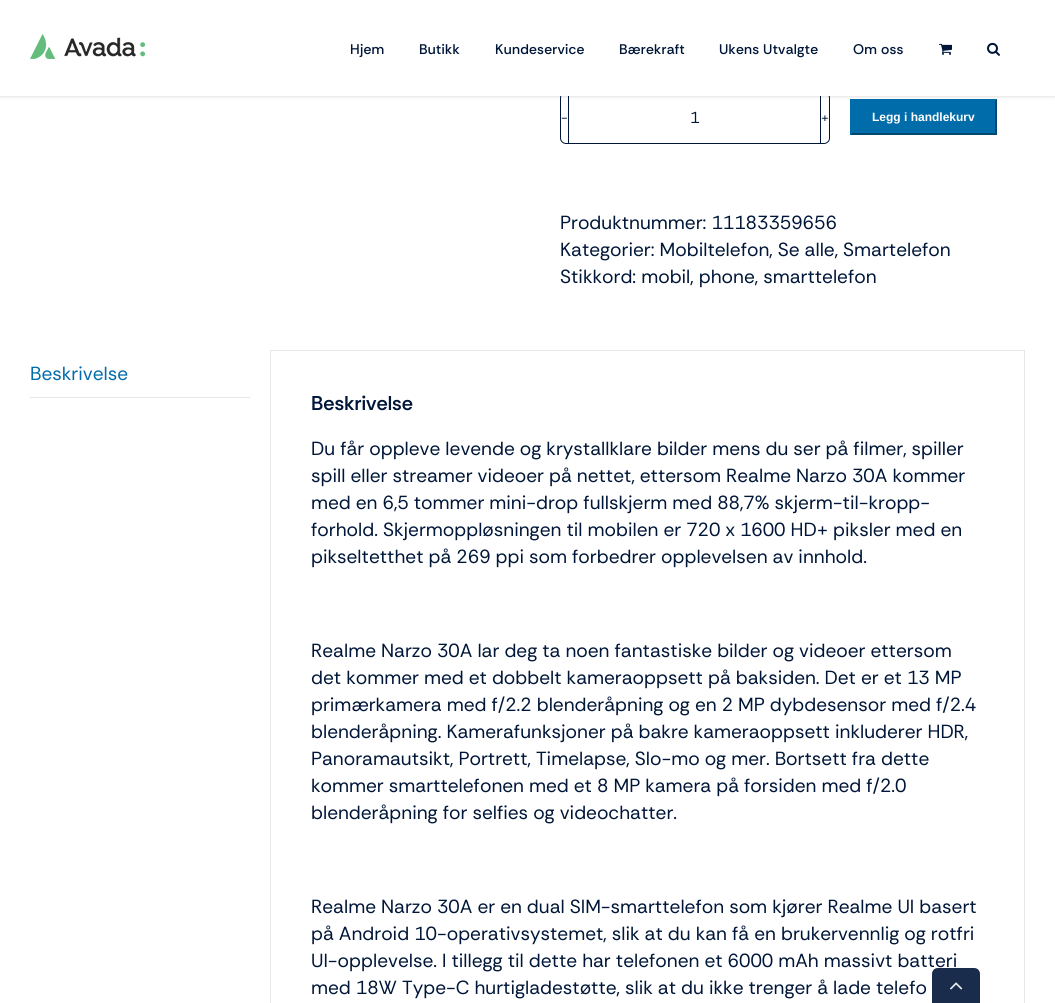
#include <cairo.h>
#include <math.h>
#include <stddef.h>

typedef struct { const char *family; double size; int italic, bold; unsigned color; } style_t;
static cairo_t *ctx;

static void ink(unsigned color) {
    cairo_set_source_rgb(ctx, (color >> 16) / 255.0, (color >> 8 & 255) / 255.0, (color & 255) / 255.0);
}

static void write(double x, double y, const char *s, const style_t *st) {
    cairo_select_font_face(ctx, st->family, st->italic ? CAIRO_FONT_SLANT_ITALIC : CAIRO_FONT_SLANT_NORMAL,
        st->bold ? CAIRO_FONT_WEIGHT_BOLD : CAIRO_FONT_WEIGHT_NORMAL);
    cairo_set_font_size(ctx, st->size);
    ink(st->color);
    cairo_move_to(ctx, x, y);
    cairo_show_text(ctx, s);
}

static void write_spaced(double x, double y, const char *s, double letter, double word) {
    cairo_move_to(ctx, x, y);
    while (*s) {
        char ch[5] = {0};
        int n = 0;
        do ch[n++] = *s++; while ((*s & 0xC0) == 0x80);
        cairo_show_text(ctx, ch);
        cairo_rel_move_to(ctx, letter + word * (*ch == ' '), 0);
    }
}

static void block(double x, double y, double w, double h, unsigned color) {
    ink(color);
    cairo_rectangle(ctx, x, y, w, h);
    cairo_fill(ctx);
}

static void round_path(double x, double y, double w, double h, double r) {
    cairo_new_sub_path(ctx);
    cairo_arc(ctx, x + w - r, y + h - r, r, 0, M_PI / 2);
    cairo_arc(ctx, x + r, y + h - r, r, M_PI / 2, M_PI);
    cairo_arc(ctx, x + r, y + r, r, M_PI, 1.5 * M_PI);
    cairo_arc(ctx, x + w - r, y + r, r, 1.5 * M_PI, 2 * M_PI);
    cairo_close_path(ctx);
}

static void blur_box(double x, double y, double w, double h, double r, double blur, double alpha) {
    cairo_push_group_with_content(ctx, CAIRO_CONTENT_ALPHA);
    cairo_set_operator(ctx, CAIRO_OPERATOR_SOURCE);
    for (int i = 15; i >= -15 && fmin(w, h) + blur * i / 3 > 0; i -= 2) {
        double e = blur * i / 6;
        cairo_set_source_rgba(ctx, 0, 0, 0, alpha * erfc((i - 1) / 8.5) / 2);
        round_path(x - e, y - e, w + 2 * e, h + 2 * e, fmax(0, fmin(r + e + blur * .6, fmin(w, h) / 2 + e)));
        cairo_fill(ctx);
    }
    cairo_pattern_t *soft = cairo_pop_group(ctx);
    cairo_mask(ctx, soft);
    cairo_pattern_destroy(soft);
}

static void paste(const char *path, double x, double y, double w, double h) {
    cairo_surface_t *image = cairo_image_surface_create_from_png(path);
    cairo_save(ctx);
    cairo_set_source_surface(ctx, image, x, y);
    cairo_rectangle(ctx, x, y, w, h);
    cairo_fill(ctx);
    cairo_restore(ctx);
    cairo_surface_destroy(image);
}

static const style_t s1 = {"Rethink Sans", 13, 0, 0, 0x001638};
static const style_t s2 = {"Rethink Sans", 16, 0, 0, 0x001638};
static const style_t s3 = {"Liberation Sans", 12, 0, 1, 0xffffff};
static const style_t s4 = {"Rethink Sans", 19, 0, 0, 0x001638};
static const style_t s5 = {"Rethink Sans", 19, 0, 0, 0x006caa};
static const style_t s6 = {"Rethink Sans SemiBold", 20, 0, 0, 0x001638};

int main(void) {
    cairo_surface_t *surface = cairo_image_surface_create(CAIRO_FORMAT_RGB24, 1055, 1003);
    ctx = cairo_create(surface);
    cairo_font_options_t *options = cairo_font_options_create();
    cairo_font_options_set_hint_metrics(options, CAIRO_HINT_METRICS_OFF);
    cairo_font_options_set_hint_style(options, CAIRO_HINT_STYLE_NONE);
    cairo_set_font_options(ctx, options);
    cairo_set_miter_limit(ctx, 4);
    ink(0xffffff);
    cairo_paint(ctx);
    round_path(560.5, 92.5, 269, 51, 5.5);
    ink(0x001638);
    cairo_set_line_width(ctx, 1);
    cairo_stroke(ctx);
    block(820, 93, 1, 50, 0x001638);
    block(568, 93, 1, 50, 0x001638);
    block(850, 99, 147, 36, 0x006caa);
    ink(0x004871);
    cairo_new_path(ctx);
    cairo_move_to(ctx, 997, 99);
    cairo_line_to(ctx, 997, 135);
    cairo_line_to(ctx, 995, 133);
    cairo_line_to(ctx, 995, 101);
    cairo_close_path(ctx);
    cairo_fill(ctx);
    cairo_new_path(ctx);
    cairo_move_to(ctx, 997, 135);
    cairo_line_to(ctx, 850, 135);
    cairo_line_to(ctx, 852, 133);
    cairo_line_to(ctx, 995, 133);
    cairo_close_path(ctx);
    cairo_fill(ctx);
    ink(0x006caa);
    cairo_new_path(ctx);
    cairo_move_to(ctx, 850, 135);
    cairo_line_to(ctx, 850, 99);
    cairo_line_to(ctx, 852, 101);
    cairo_line_to(ctx, 852, 133);
    cairo_close_path(ctx);
    cairo_fill(ctx);
    ink(0x000000);
    blur_box(0, 1, 1055, 96, 0, 1.5, 0.12);
    block(0, 0, 1055, 96, 0xffffff);
    paste("pic1.png", 30, 34, 115, 25);
    cairo_select_font_face(ctx, "Rethink Sans Medium", CAIRO_FONT_SLANT_NORMAL, CAIRO_FONT_WEIGHT_NORMAL);
    cairo_set_font_size(ctx, 14);
    ink(0x001638);
    write_spaced(350, 54, "Hjem", 0.25, 0);
    write_spaced(419, 54, "Butikk", 0.25, 0);
    write_spaced(495, 54, "Kundeservice", 0.25, 0);
    write_spaced(619, 54, "Bærekraft", 0.25, 0);
    write_spaced(719, 54, "Ukens Utvalgte", 0.25, 0);
    write_spaced(853, 54, "Om oss", 0.25, 0);
    paste("pic2.png", 939, 43, 13, 12);
    paste("pic3.png", 987, 42, 13, 14);
    write(561, 122, "-", &s1);
    write(690, 123, "1", &s2);
    write(821, 122, "+", &s1);
    write(872, 121, "Legg i handlekurv", &s3);
    write(560, 229, "Produktnummer: 11183359656", &s4);
    write(560, 256, "Kategorier: Mobiltelefon, Se alle, Smartelefon", &s4);
    write(560, 283, "Stikkord: mobil, phone, smarttelefon", &s4);
    block(30, 397, 220, 1, 0xe7e6e6);
    write(30, 380, "Beskrivelse", &s5);
    cairo_rectangle(ctx, 270.5, 350.5, 754, 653);
    ink(0xe7e6e6);
    cairo_stroke(ctx);
    write(311, 410, "Beskrivelse", &s6);
    write(311, 455, "Du får oppleve levende og krystallklare bilder mens du ser på filmer, spiller", &s4);
    write(311, 482, "spill eller streamer videoer på nettet, ettersom Realme Narzo 30A kommer", &s4);
    write(311, 509, "med en 6,5 tommer mini-drop fullskjerm med 88,7% skjerm-til-kropp-", &s4);
    write(311, 536, "forhold. Skjermoppløsningen til mobilen er 720 x 1600 HD+ piksler med en", &s4);
    write(311, 563, "pikseltetthet på 269 ppi som forbedrer opplevelsen av innhold.", &s4);
    write(311, 657, "Realme Narzo 30A lar deg ta noen fantastiske bilder og videoer ettersom", &s4);
    write(311, 684, "det kommer med et dobbelt kameraoppsett på baksiden. Det er et 13 MP", &s4);
    write(311, 711, "primærkamera med f/2.2 blenderåpning og en 2 MP dybdesensor med f/2.4", &s4);
    write(311, 738, "blenderåpning. Kamerafunksjoner på bakre kameraoppsett inkluderer HDR,", &s4);
    write(311, 765, "Panoramautsikt, Portrett, Timelapse, Slo-mo og mer. Bortsett fra dette", &s4);
    write(311, 792, "kommer smarttelefonen med et 8 MP kamera på forsiden med f/2.0", &s4);
    write(311, 819, "blenderåpning for selfies og videochatter.", &s4);
    write(311, 913, "Realme Narzo 30A er en dual SIM-smarttelefon som kjører Realme UI basert", &s4);
    write(311, 940, "på Android 10-operativsystemet, slik at du kan få en brukervennlig og rotfri", &s4);
    write(311, 967, "UI-opplevelse. I tillegg til dette har telefonen et 6000 mAh massivt batteri", &s4);
    write(311, 994, "med 18W Type-C hurtigladestøtte, slik at du ikke trenger å lade telefo", &s4);
    cairo_set_source_rgba(ctx, 0, 0.086, 0.22, 0.9);
    cairo_new_path(ctx);
    cairo_move_to(ctx, 938, 968);
    cairo_line_to(ctx, 974, 968);
    cairo_curve_to(ctx, 977.5, 968, 980, 970.5, 980, 974);
    cairo_line_to(ctx, 980, 1003);
    cairo_line_to(ctx, 932, 1003);
    cairo_line_to(ctx, 932, 974);
    cairo_curve_to(ctx, 932, 970.5, 934.5, 968, 938, 968);
    cairo_close_path(ctx);
    cairo_fill(ctx);
    paste("pic4.png", 950, 982, 13, 8);
    cairo_surface_write_to_png(surface, "screenshot.png");
    cairo_font_options_destroy(options);
    cairo_destroy(ctx);
    cairo_surface_destroy(surface);
    return 0;
}
